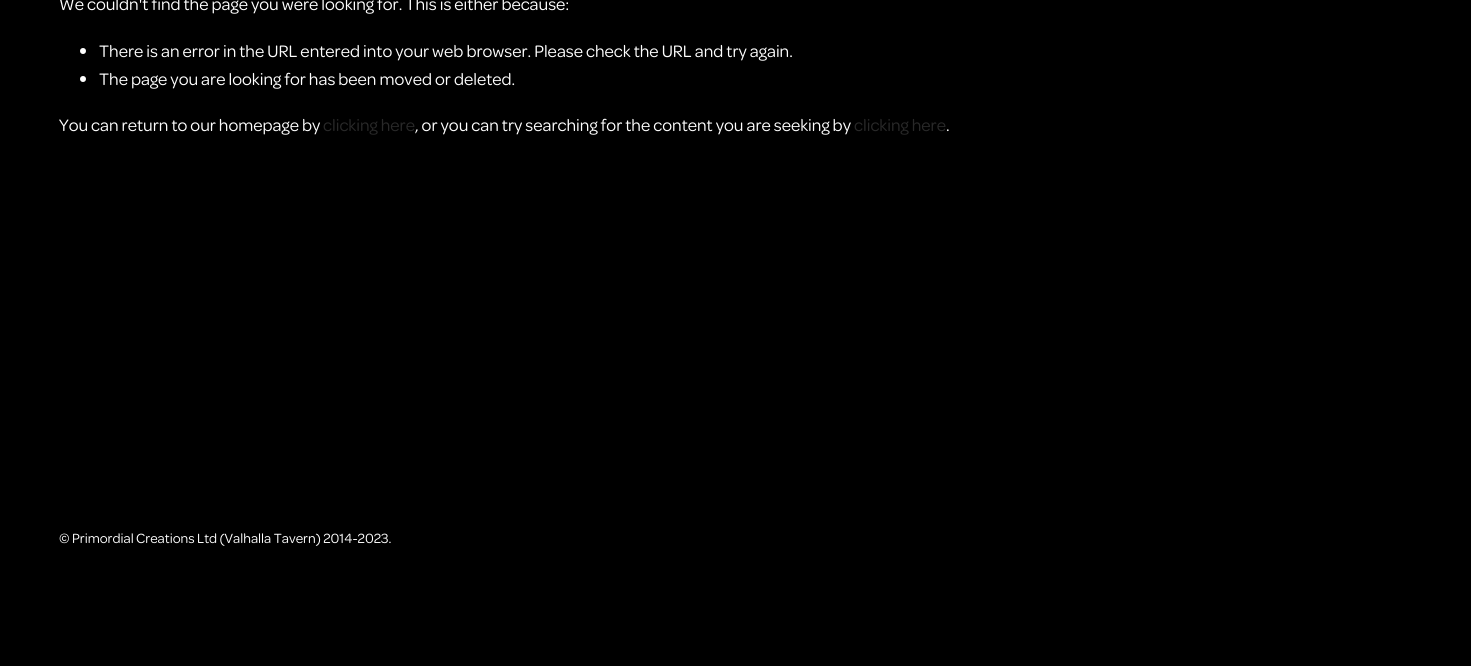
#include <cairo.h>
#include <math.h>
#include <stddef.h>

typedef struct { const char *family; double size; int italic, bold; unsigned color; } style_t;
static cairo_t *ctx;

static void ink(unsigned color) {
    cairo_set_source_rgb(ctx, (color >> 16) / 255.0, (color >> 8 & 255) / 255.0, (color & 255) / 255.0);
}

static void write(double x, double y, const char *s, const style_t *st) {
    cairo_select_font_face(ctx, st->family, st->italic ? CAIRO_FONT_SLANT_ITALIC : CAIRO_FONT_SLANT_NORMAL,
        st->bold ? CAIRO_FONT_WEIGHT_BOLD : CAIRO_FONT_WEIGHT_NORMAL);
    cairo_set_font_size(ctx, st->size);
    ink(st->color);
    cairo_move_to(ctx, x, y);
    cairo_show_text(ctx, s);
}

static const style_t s1 = {"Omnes", 17.75, 0, 0, 0xffffff};
static const style_t s2 = {"Omnes", 17.75, 0, 0, 0x292929};
static const style_t s3 = {"Omnes", 14.25, 0, 0, 0xffffff};

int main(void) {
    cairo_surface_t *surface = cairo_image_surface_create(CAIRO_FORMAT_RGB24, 1471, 666);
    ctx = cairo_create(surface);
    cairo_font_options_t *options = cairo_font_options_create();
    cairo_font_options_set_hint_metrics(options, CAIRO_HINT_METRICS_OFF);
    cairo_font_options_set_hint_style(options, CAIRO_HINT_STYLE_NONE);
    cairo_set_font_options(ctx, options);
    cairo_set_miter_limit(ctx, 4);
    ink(0x000000);
    cairo_paint(ctx);
    write(59, 10, "We couldn't find the page you were looking for. This is either because:", &s1);
    cairo_new_path(ctx);
    cairo_arc(ctx, 83, 51, 3, 0, 2 * M_PI);
    cairo_fill(ctx);
    write(99, 57, "There is an error in the URL entered into your web browser. Please check the URL and try again.", &s1);
    cairo_new_path(ctx);
    cairo_arc(ctx, 83, 79, 3, 0, 2 * M_PI);
    cairo_fill(ctx);
    write(99, 85, "The page you are looking for has been moved or deleted.", &s1);
    write(59, 131, "You can return to our homepage by", &s1);
    write(323, 131, "clicking here", &s2);
    write(415, 131, ", or you can try searching for the content you are seeking by", &s1);
    write(854, 131, "clicking here", &s2);
    write(946, 131, ".", &s1);
    write(59, 543, "© Primordial Creations Ltd (Valhalla Tavern) 2014-2023.", &s3);
    cairo_surface_write_to_png(surface, "screenshot.png");
    cairo_font_options_destroy(options);
    cairo_destroy(ctx);
    cairo_surface_destroy(surface);
    return 0;
}
